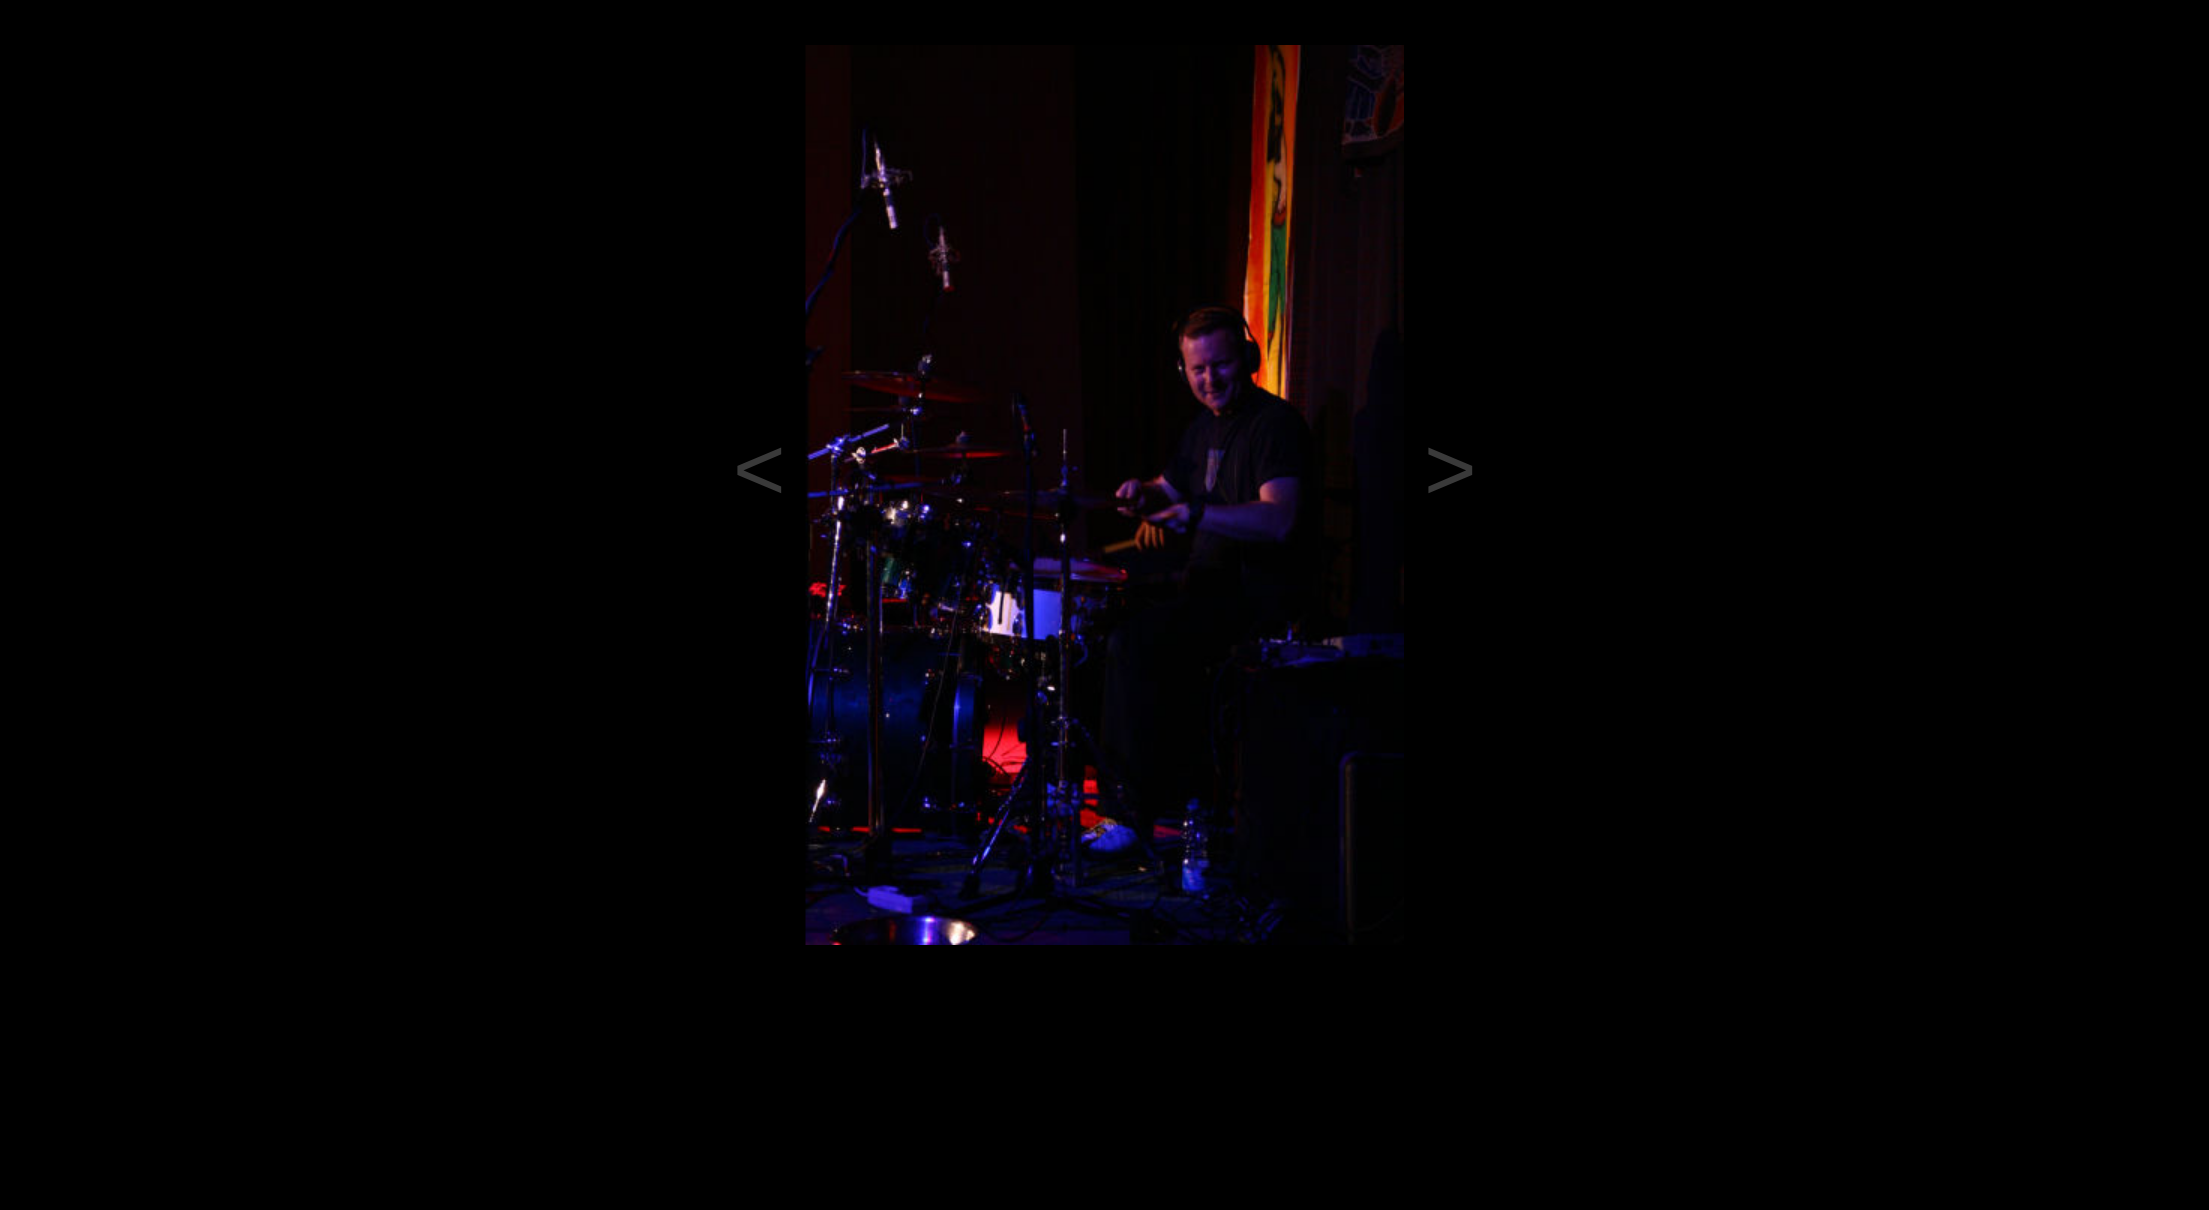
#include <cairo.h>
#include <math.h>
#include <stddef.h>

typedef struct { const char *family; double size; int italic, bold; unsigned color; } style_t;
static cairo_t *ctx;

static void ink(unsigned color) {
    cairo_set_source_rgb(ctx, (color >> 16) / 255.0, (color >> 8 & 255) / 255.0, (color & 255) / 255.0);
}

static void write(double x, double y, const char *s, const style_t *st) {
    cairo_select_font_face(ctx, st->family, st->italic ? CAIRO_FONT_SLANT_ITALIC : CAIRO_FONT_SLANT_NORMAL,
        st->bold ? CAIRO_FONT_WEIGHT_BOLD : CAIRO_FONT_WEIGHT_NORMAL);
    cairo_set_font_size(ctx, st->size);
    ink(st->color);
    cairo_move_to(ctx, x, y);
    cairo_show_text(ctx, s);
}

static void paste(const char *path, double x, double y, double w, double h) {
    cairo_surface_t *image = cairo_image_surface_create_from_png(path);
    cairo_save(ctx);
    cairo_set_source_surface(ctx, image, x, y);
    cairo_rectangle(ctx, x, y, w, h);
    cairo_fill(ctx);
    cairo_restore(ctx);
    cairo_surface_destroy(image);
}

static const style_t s1 = {"Liberation Sans", 90, 0, 0, 0x3a3a3a};

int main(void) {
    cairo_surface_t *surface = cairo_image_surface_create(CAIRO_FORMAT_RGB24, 2209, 1210);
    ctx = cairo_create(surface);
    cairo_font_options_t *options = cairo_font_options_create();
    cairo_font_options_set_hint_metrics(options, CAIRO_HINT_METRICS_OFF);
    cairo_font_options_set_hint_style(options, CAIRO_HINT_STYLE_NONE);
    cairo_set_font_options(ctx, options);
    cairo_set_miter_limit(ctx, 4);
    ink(0x000000);
    cairo_paint(ctx);
    write(733, 500, "<", &s1);
    paste("pic1.png", 805, 45, 599, 900);
    write(1424, 500, ">", &s1);
    cairo_surface_write_to_png(surface, "screenshot.png");
    cairo_font_options_destroy(options);
    cairo_destroy(ctx);
    cairo_surface_destroy(surface);
    return 0;
}
